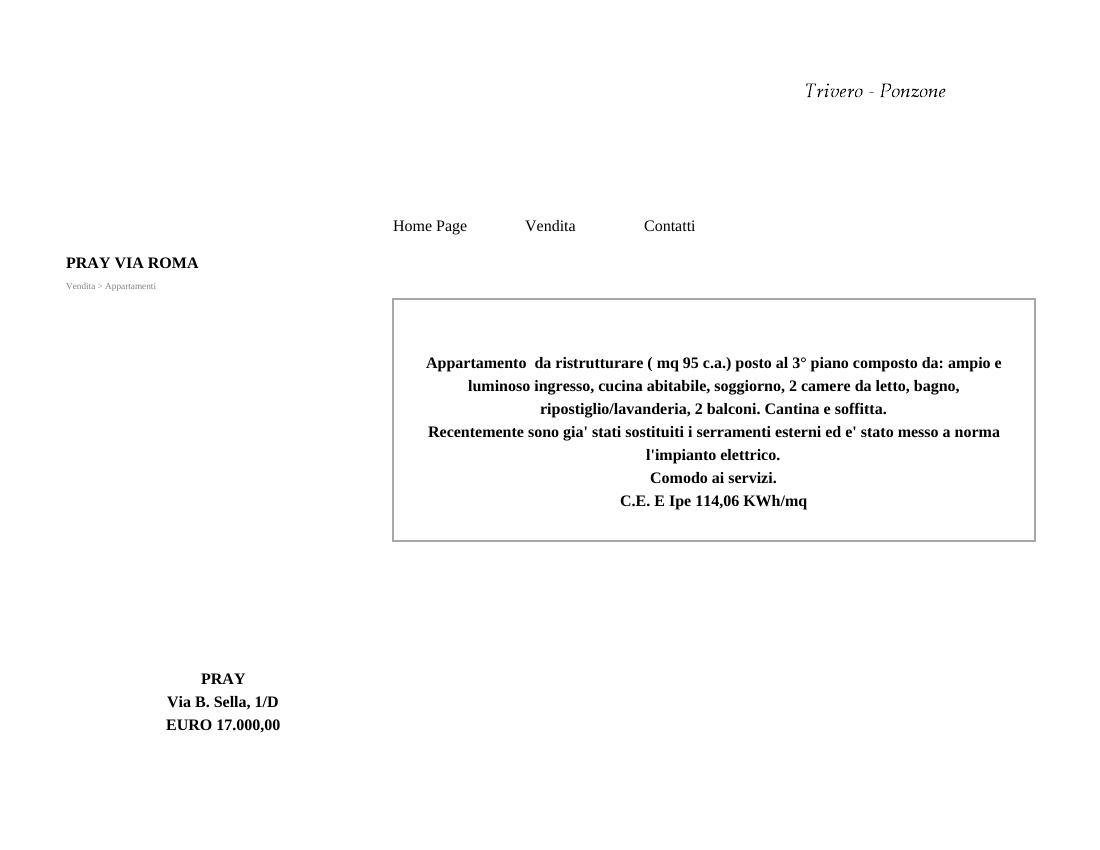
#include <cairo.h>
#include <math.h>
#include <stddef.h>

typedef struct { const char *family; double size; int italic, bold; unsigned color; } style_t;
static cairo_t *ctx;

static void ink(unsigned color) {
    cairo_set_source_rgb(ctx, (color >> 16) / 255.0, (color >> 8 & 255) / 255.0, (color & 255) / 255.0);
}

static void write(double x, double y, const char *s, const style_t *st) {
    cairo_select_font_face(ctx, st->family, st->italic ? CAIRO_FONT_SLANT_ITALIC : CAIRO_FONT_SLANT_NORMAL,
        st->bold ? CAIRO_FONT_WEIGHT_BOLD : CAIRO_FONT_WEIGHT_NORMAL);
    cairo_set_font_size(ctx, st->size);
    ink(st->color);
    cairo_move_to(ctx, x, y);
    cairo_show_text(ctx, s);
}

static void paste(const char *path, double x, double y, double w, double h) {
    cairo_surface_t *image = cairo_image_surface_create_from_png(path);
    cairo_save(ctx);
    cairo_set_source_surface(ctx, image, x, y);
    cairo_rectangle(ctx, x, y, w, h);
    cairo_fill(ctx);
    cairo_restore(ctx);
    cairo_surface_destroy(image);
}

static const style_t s1 = {"Liberation Serif", 16, 0, 0, 0x000000};
static const style_t s2 = {"Liberation Serif", 16, 0, 1, 0x000000};
static const style_t s3 = {"Liberation Serif", 9.25, 0, 0, 0x808080};

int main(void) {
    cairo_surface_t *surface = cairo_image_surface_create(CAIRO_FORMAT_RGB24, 1100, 850);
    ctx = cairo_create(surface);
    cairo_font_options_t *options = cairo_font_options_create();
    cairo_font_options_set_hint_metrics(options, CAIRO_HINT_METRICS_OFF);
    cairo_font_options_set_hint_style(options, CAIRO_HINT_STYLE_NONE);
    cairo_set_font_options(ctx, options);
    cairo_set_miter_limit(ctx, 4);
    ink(0xffffff);
    cairo_paint(ctx);
    paste("pic1.png", 806, 83, 140, 15);
    write(393, 231, "Home Page", &s1);
    write(525, 231, "Vendita", &s1);
    write(644, 231, "Contatti", &s1);
    write(66, 268, "PRAY VIA ROMA", &s2);
    write(66, 289, "Vendita > Appartamenti", &s3);
    cairo_rectangle(ctx, 393, 299, 642, 242);
    ink(0xa8a8a8);
    cairo_stroke(ctx);
    write(426, 368, "Appartamento  da ristrutturare ( mq 95 c.a.) posto al 3° piano composto da: ampio e", &s2);
    write(468, 391, "luminoso ingresso, cucina abitabile, soggiorno, 2 camere da letto, bagno,", &s2);
    write(540, 414, "ripostiglio/lavanderia, 2 balconi. Cantina e soffitta.", &s2);
    write(428, 437, "Recentemente sono gia' stati sostituiti i serramenti esterni ed e' stato messo a norma", &s2);
    write(646, 460, "l'impianto elettrico.", &s2);
    write(650, 483, "Comodo ai servizi.", &s2);
    write(620, 506, "C.E. E Ipe 114,06 KWh/mq", &s2);
    write(201, 684, "PRAY", &s2);
    write(167, 707, "Via B. Sella, 1/D", &s2);
    write(166, 730, "EURO 17.000,00", &s2);
    cairo_surface_write_to_png(surface, "screenshot.png");
    cairo_font_options_destroy(options);
    cairo_destroy(ctx);
    cairo_surface_destroy(surface);
    return 0;
}
